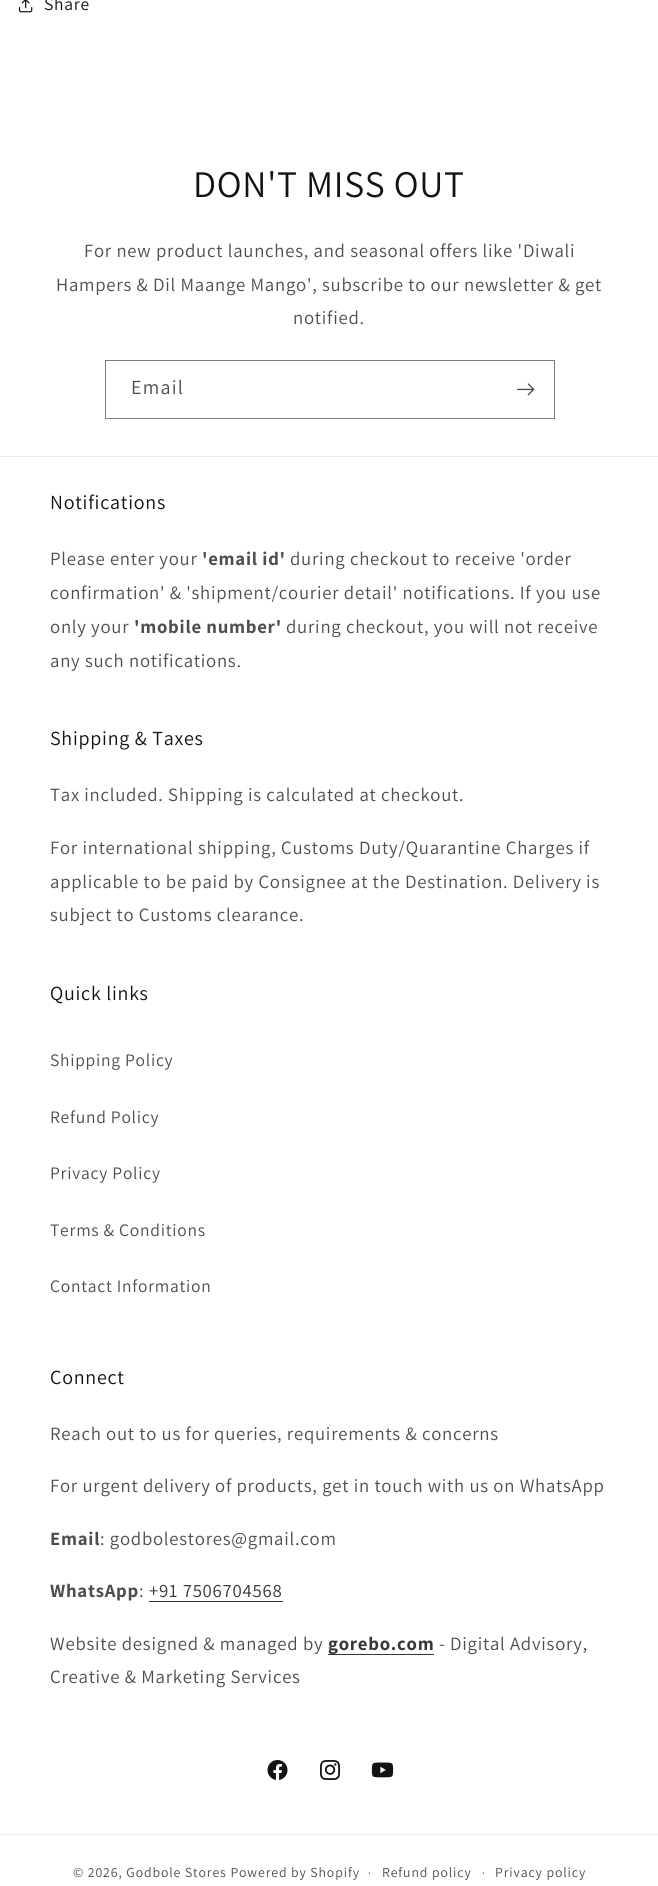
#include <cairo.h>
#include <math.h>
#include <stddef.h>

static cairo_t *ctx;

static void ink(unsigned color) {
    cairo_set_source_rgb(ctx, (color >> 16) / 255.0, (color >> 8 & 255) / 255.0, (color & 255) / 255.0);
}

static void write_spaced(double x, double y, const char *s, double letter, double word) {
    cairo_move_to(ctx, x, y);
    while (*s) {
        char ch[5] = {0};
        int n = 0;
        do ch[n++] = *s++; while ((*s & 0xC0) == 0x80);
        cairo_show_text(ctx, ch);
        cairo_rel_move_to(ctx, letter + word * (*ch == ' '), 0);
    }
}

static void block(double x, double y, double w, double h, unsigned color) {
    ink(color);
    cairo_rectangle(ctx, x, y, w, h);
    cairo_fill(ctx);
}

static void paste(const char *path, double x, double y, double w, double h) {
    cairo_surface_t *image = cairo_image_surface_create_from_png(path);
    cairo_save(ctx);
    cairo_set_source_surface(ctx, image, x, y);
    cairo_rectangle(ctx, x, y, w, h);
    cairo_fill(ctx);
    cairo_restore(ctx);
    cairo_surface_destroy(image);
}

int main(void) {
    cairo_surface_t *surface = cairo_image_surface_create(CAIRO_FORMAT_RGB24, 658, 1886);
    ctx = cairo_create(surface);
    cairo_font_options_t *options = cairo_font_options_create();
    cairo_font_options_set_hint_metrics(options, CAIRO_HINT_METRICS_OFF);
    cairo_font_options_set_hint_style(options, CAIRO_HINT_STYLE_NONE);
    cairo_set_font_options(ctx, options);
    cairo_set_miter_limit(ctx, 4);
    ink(0xffffff);
    cairo_paint(ctx);
    paste("pic1.png", 18, 0, 15, 13);
    cairo_select_font_face(ctx, "Assistant", CAIRO_FONT_SLANT_NORMAL, CAIRO_FONT_WEIGHT_NORMAL);
    cairo_set_font_size(ctx, 17.5);
    ink(0x121212);
    write_spaced(44, 10, "Share", 0.75, 0);
    cairo_set_font_size(ctx, 37.5);
    write_spaced(193, 197, "DON'T MISS OUT", 0.75, 0);
    cairo_set_font_size(ctx, 18.75);
    ink(0x4d4d4d);
    write_spaced(84, 257, "For new product launches, and seasonal offers like 'Diwali", 0.75, 0);
    write_spaced(56, 291, "Hampers & Dil Maange Mango', subscribe to our newsletter & get", 0.75, 0);
    write_spaced(293, 324, "notified.", 0.75, 0);
    cairo_rectangle(ctx, 105.5, 360.5, 449, 58);
    ink(0x7d7d7d);
    cairo_set_line_width(ctx, 1);
    cairo_stroke(ctx);
    cairo_set_font_size(ctx, 20);
    ink(0x4d4d4d);
    write_spaced(131, 394, "Email", 1.25, 0);
    paste("pic2.png", 517, 383, 18, 13);
    block(0, 456, 658, 1, 0xececec);
    ink(0x121212);
    write_spaced(50, 509, "Notifications", 0.75, 0);
    cairo_set_font_size(ctx, 18.75);
    ink(0x4d4d4d);
    write_spaced(50, 565, "Please enter your", 0.75, 0);
    cairo_select_font_face(ctx, "Assistant", CAIRO_FONT_SLANT_NORMAL, CAIRO_FONT_WEIGHT_BOLD);
    write_spaced(202, 565, "'email id'", 0.75, 0);
    cairo_select_font_face(ctx, "Assistant", CAIRO_FONT_SLANT_NORMAL, CAIRO_FONT_WEIGHT_NORMAL);
    write_spaced(290, 565, "during checkout to receive 'order", 0.75, 0);
    write_spaced(50, 599, "confirmation' & 'shipment/courier detail' notifications. If you use", 0.75, 0);
    write_spaced(50, 633, "only your", 0.75, 0);
    cairo_select_font_face(ctx, "Assistant", CAIRO_FONT_SLANT_NORMAL, CAIRO_FONT_WEIGHT_BOLD);
    write_spaced(134, 633, "'mobile number'", 0.75, 0);
    cairo_select_font_face(ctx, "Assistant", CAIRO_FONT_SLANT_NORMAL, CAIRO_FONT_WEIGHT_NORMAL);
    write_spaced(286, 633, "during checkout, you will not receive", 0.75, 0);
    write_spaced(50, 667, "any such notifications.", 0.75, 0);
    cairo_set_font_size(ctx, 20);
    ink(0x121212);
    write_spaced(50, 745, "Shipping & Taxes", 0.75, 0);
    cairo_set_font_size(ctx, 18.75);
    ink(0x4d4d4d);
    write_spaced(50, 801, "Tax included. Shipping is calculated at checkout.", 0.75, 0);
    write_spaced(50, 854, "For international shipping, Customs Duty/Quarantine Charges if", 0.75, 0);
    write_spaced(50, 888, "applicable to be paid by Consignee at the Destination. Delivery is", 0.75, 0);
    write_spaced(50, 921, "subject to Customs clearance.", 0.75, 0);
    cairo_set_font_size(ctx, 20);
    ink(0x121212);
    write_spaced(50, 1000, "Quick links", 0.75, 0);
    cairo_set_font_size(ctx, 17.5);
    ink(0x4d4d4d);
    write_spaced(50, 1066, "Shipping Policy", 0.75, 0);
    write_spaced(50, 1123, "Refund Policy", 0.75, 0);
    write_spaced(50, 1179, "Privacy Policy", 0.75, 0);
    write_spaced(50, 1236, "Terms & Conditions", 0.75, 0);
    write_spaced(50, 1292, "Contact Information", 0.75, 0);
    cairo_set_font_size(ctx, 20);
    ink(0x121212);
    write_spaced(50, 1384, "Connect", 0.75, 0);
    cairo_set_font_size(ctx, 18.75);
    ink(0x4d4d4d);
    write_spaced(50, 1440, "Reach out to us for queries, requirements & concerns", 0.75, 0);
    write_spaced(50, 1492, "For urgent delivery of products, get in touch with us on WhatsApp", 0.75, 0);
    cairo_select_font_face(ctx, "Assistant", CAIRO_FONT_SLANT_NORMAL, CAIRO_FONT_WEIGHT_BOLD);
    write_spaced(50, 1545, "Email", 0.75, 0);
    cairo_select_font_face(ctx, "Assistant", CAIRO_FONT_SLANT_NORMAL, CAIRO_FONT_WEIGHT_NORMAL);
    write_spaced(100, 1545, ": godbolestores@gmail.com", 0.75, 0);
    cairo_select_font_face(ctx, "Assistant", CAIRO_FONT_SLANT_NORMAL, CAIRO_FONT_WEIGHT_BOLD);
    write_spaced(50, 1597, "WhatsApp", 0.75, 0);
    cairo_select_font_face(ctx, "Assistant", CAIRO_FONT_SLANT_NORMAL, CAIRO_FONT_WEIGHT_NORMAL);
    write_spaced(139, 1597, ":", 0.75, 0);
    ink(0x363636);
    write_spaced(149, 1597, "+91 7506704568", 0.75, 0);
    block(149, 1601, 134, 1, 0x363636);
    ink(0x4d4d4d);
    write_spaced(50, 1650, "Website designed & managed by", 0.75, 0);
    cairo_select_font_face(ctx, "Assistant", CAIRO_FONT_SLANT_NORMAL, CAIRO_FONT_WEIGHT_BOLD);
    ink(0x363636);
    write_spaced(328, 1650, "gorebo.com", 0.75, 0);
    block(328, 1654, 106, 1, 0x363636);
    cairo_select_font_face(ctx, "Assistant", CAIRO_FONT_SLANT_NORMAL, CAIRO_FONT_WEIGHT_NORMAL);
    ink(0x4d4d4d);
    write_spaced(439, 1650, "- Digital Advisory,", 0.75, 0);
    write_spaced(50, 1683, "Creative & Marketing Services", 0.75, 0);
    paste("pic3.png", 267, 1760, 21, 20);
    paste("pic4.png", 320, 1760, 20, 20);
    paste("pic5.png", 371, 1762, 23, 16);
    block(0, 1834, 658, 1, 0xececec);
    cairo_set_font_size(ctx, 13.75);
    ink(0x4d4d4d);
    write_spaced(73, 1877, "© 2026, Godbole Stores Powered by Shopify", 0.9, 0);
    cairo_set_font_size(ctx, 12);
    write_spaced(368, 1877, "·", 0.9, 0);
    cairo_set_font_size(ctx, 13.75);
    write_spaced(382, 1877, "Refund policy", 0.9, 0);
    cairo_set_font_size(ctx, 12);
    write_spaced(482, 1877, "·", 0.9, 0);
    cairo_set_font_size(ctx, 13.75);
    write_spaced(495, 1877, "Privacy policy", 0.9, 0);
    cairo_surface_write_to_png(surface, "screenshot.png");
    cairo_font_options_destroy(options);
    cairo_destroy(ctx);
    cairo_surface_destroy(surface);
    return 0;
}
